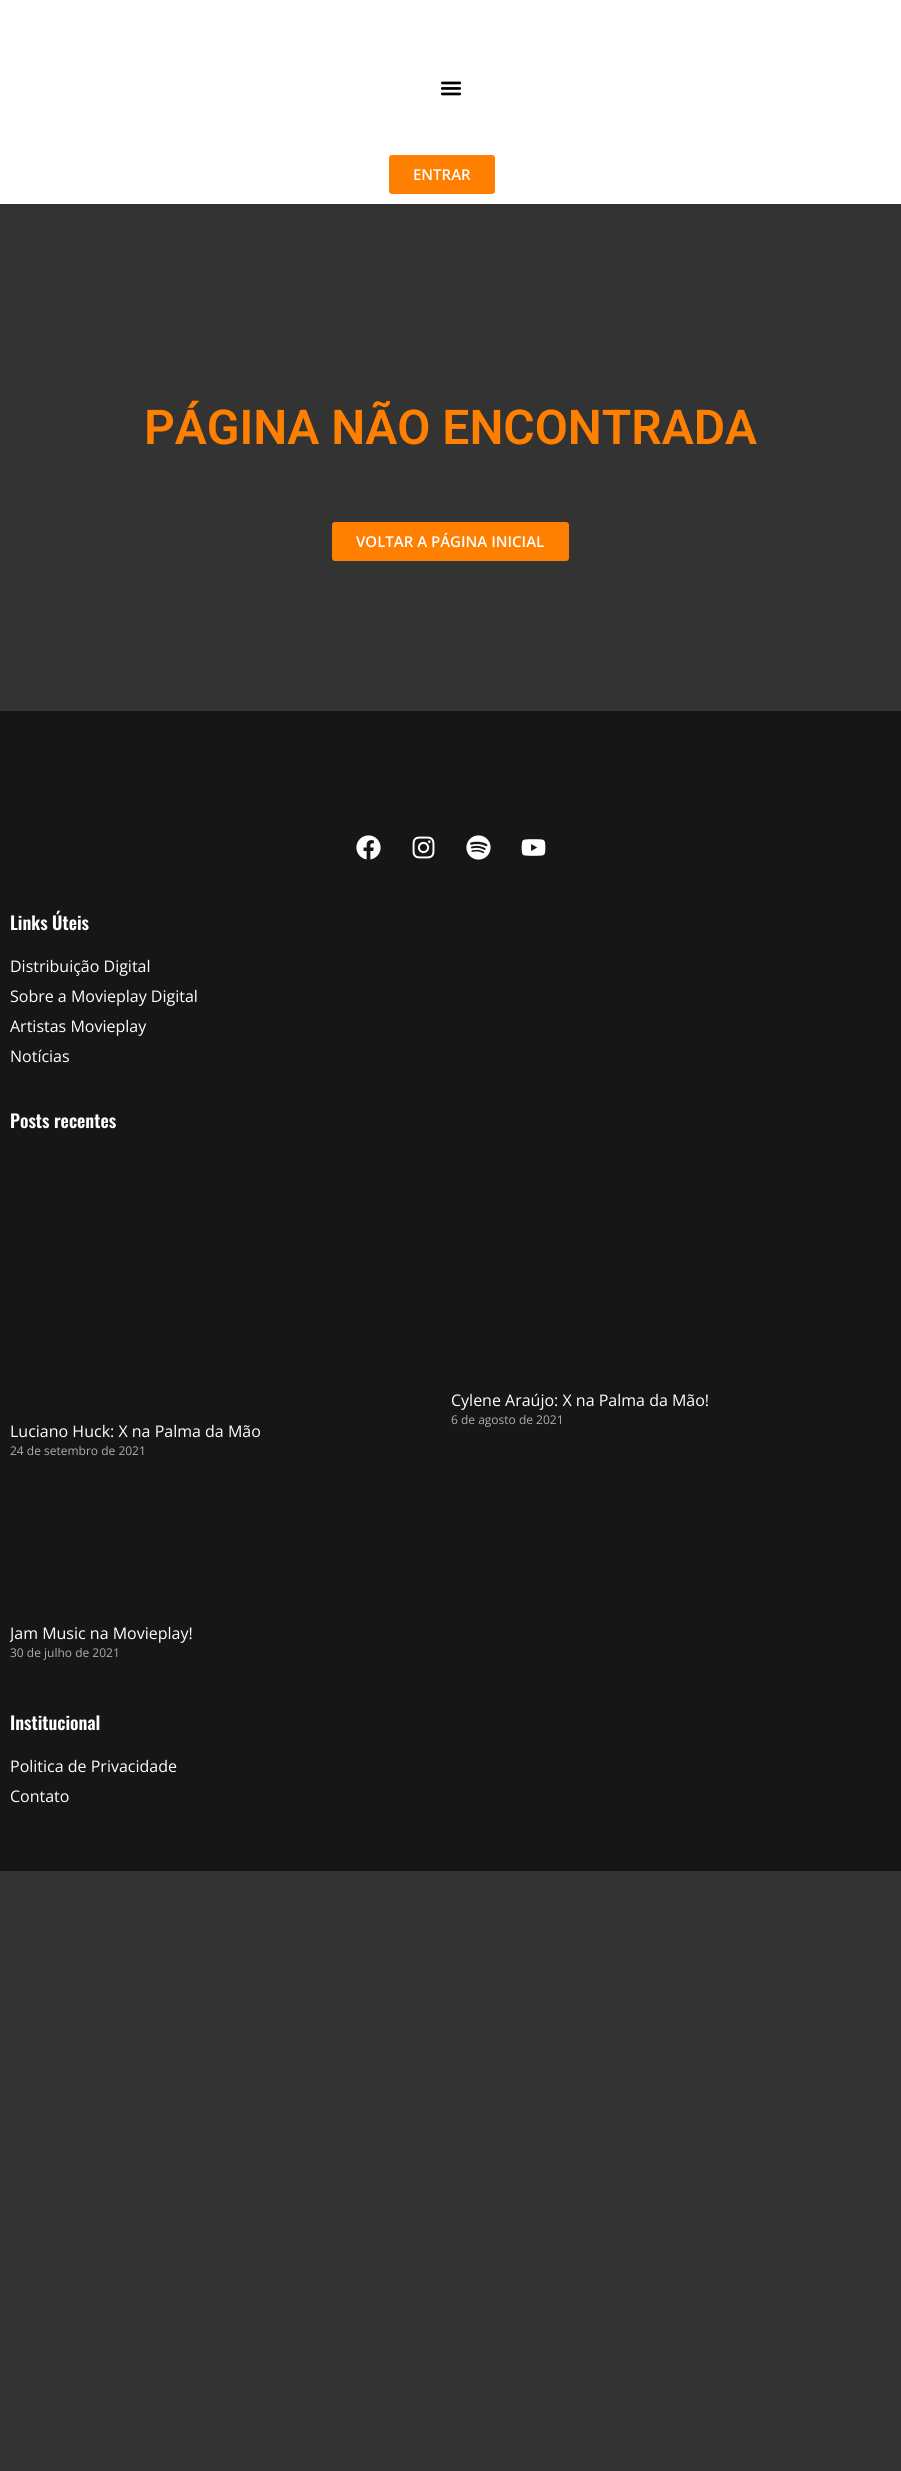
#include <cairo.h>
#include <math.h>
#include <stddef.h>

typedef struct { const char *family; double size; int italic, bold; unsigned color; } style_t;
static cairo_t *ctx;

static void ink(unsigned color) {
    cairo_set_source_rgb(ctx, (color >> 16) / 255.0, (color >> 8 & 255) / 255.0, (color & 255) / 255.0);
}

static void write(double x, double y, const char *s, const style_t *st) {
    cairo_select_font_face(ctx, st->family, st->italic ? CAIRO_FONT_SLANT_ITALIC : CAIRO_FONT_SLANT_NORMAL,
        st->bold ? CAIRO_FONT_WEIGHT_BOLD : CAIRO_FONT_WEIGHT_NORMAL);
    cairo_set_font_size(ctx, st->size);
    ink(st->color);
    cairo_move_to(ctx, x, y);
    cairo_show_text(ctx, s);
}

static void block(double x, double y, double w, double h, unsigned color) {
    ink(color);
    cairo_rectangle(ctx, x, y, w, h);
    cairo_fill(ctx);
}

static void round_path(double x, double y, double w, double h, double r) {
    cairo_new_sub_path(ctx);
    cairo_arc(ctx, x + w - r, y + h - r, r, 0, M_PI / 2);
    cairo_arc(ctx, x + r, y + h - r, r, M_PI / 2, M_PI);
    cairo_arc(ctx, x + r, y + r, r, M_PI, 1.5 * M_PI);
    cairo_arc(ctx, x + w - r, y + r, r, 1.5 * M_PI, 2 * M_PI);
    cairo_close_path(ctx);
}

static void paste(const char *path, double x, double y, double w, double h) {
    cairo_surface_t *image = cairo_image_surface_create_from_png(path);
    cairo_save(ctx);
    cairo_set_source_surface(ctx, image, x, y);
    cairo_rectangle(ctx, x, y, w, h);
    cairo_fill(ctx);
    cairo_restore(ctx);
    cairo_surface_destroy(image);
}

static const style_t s1 = {"Open Sans SemiBold", 15, 0, 0, 0xffffff};
static const style_t s2 = {"Roboto SemiBold", 48, 0, 0, 0xff7f00};
static const style_t s3 = {"Oswald SemiBold", 18, 0, 0, 0xffffff};
static const style_t s4 = {"Open Sans", 16, 0, 0, 0xffffff};
static const style_t s5 = {"Open Sans", 12, 0, 0, 0xadadad};

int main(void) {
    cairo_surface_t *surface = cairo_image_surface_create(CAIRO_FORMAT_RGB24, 901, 2471);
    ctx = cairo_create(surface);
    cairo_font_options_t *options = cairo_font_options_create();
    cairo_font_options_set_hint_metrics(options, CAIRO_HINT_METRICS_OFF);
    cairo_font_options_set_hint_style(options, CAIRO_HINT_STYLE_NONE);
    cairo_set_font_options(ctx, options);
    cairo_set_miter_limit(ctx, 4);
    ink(0x333333);
    cairo_paint(ctx);
    block(0, 0, 901, 204, 0xffffff);
    paste("pic1.png", 440, 81, 22, 15);
    ink(0xff7f00);
    round_path(389, 155, 106, 39, 3);
    cairo_fill(ctx);
    write(413, 180, "ENTRAR", &s1);
    write(144, 444, "PÁGINA NÃO ENCONTRADA", &s2);
    round_path(332, 522, 237, 39, 3);
    cairo_fill(ctx);
    write(356, 547, "VOLTAR A PÁGINA INICIAL", &s1);
    block(0, 711, 901, 1160, 0x161616);
    paste("pic2.png", 356, 835, 25, 25);
    paste("pic3.png", 412, 836, 23, 23);
    paste("pic4.png", 466, 835, 25, 25);
    paste("pic5.png", 521, 839, 25, 17);
    write(10, 930, "Links Úteis", &s3);
    write(10, 972, "Distribuição Digital", &s4);
    write(10, 1002, "Sobre a Movieplay Digital", &s4);
    write(10, 1032, "Artistas Movieplay", &s4);
    write(10, 1062, "Notícias", &s4);
    write(10, 1128, "Posts recentes", &s3);
    write(451, 1406, "Cylene Araújo: X na Palma da Mão!", &s4);
    write(451, 1424, "6 de agosto de 2021", &s5);
    write(10, 1437, "Luciano Huck: X na Palma da Mão", &s4);
    write(10, 1455, "24 de setembro de 2021", &s5);
    cairo_save(ctx);
    cairo_rectangle(ctx, 10, 1471, 441, 202);
    cairo_clip(ctx);
    write(10, 1639, "Jam Music na Movieplay!", &s4);
    cairo_restore(ctx);
    write(10, 1657, "30 de julho de 2021", &s5);
    write(10, 1730, "Institucional", &s3);
    write(10, 1772, "Politica de Privacidade", &s4);
    write(10, 1802, "Contato", &s4);
    cairo_surface_write_to_png(surface, "screenshot.png");
    cairo_font_options_destroy(options);
    cairo_destroy(ctx);
    cairo_surface_destroy(surface);
    return 0;
}
